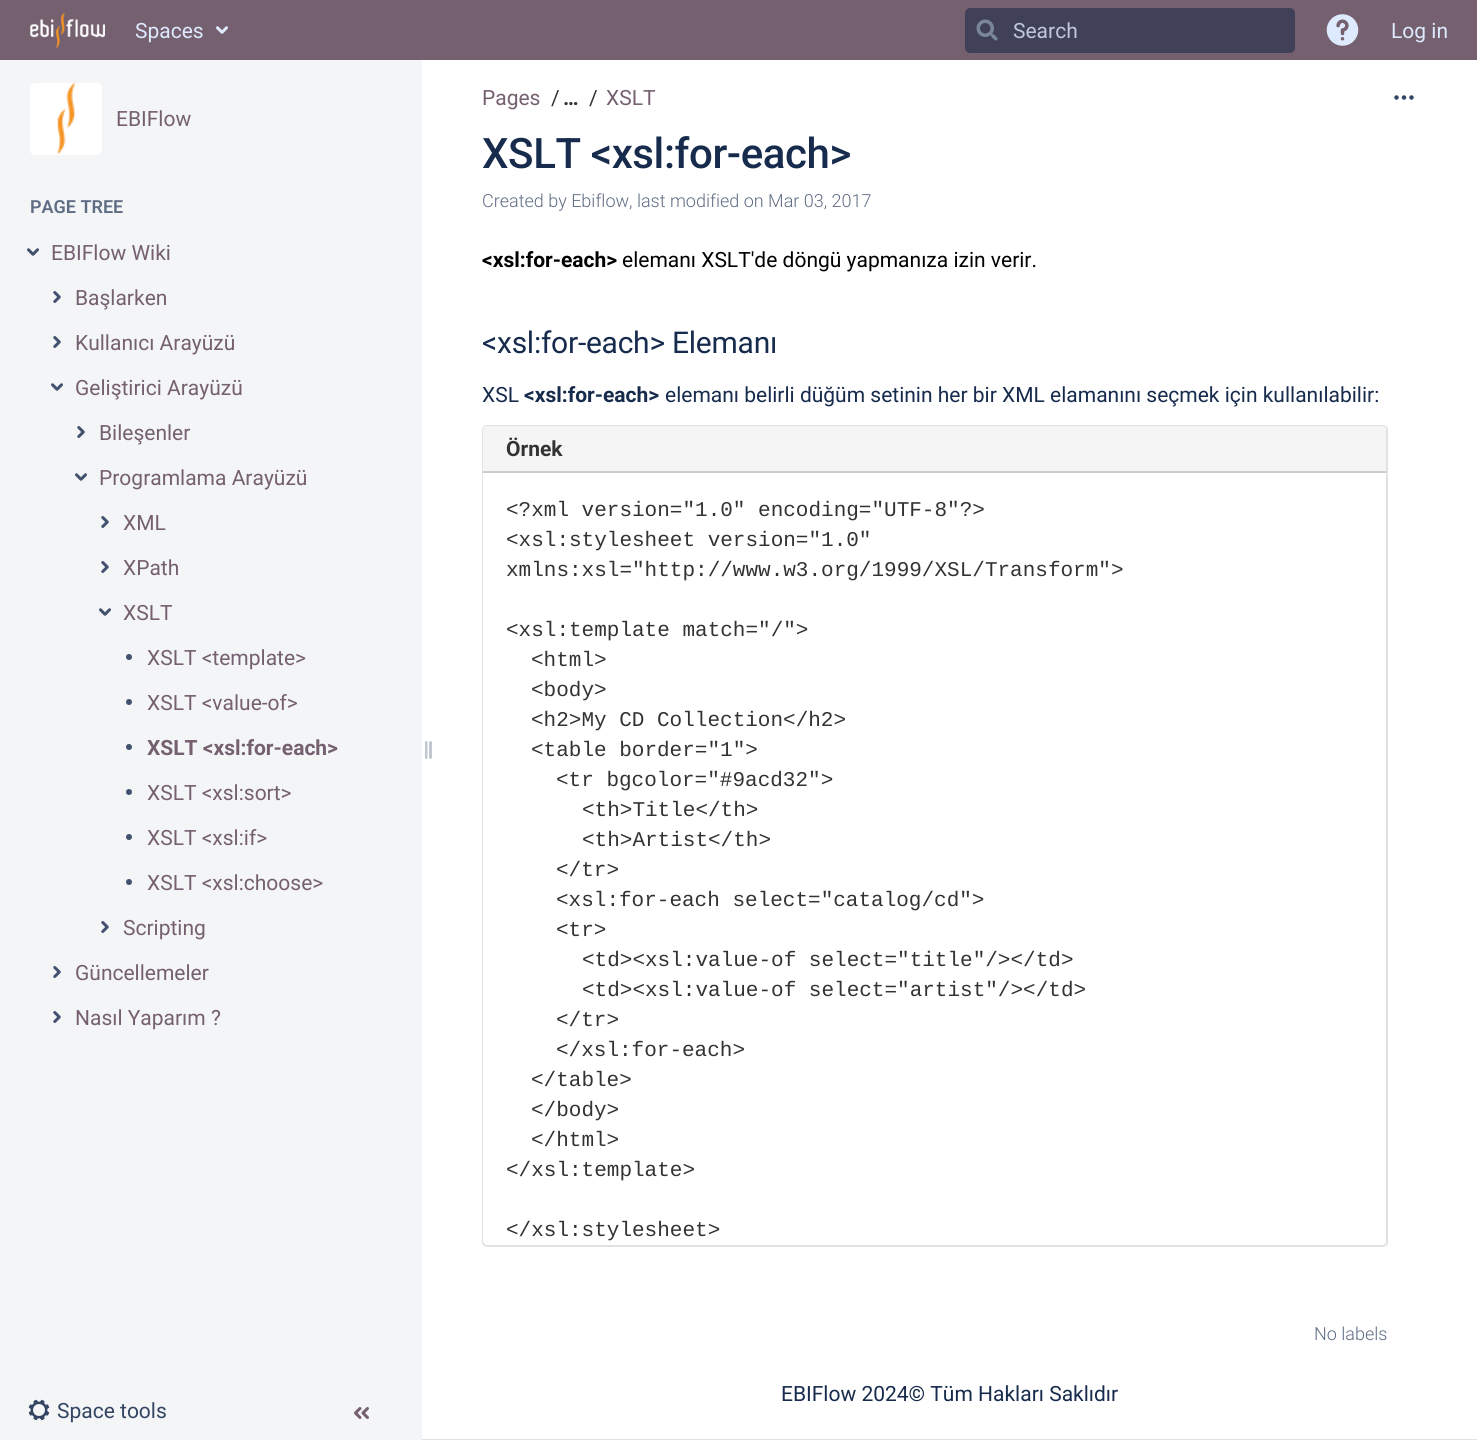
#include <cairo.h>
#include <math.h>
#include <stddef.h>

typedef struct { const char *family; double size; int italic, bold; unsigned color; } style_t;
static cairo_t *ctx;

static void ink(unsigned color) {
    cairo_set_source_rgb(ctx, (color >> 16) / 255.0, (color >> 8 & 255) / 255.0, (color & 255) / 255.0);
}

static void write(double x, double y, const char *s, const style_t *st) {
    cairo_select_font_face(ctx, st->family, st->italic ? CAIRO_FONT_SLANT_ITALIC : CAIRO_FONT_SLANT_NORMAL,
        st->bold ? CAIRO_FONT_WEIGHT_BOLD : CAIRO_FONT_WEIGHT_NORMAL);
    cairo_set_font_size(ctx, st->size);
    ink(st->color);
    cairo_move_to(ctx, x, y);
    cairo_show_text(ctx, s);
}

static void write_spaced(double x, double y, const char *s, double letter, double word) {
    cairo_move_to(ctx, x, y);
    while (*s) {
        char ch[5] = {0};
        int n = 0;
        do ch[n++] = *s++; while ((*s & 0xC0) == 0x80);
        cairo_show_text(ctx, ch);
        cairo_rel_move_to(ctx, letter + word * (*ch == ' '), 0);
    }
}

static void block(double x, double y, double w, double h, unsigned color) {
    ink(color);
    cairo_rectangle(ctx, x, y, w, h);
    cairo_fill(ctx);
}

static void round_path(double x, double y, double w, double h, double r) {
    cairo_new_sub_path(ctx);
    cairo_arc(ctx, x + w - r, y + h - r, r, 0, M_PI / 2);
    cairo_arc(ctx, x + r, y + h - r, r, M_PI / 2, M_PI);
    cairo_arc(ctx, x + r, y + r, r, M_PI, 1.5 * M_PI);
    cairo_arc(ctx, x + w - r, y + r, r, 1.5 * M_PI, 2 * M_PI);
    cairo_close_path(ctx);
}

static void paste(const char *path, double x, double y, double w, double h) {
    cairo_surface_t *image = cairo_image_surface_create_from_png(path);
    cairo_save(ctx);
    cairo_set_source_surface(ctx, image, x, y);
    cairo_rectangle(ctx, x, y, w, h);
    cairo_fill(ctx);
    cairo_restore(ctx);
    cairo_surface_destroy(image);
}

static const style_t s1 = {"Roboto", 21, 0, 0, 0xdeebff};
static const style_t s2 = {"Roboto", 21, 0, 0, 0xbfc9de};
static const style_t s3 = {"Roboto", 21, 0, 0, 0x75606f};
static const style_t s4 = {"Roboto SemiBold", 18, 0, 0, 0x5e6c84};
static const style_t s5 = {"Roboto", 21, 0, 1, 0x75606f};
static const style_t s6 = {"Roboto", 21, 0, 0, 0x344563};
static const style_t s7 = {"Roboto", 21, 0, 0, 0x333333};
static const style_t s8 = {"Roboto", 21, 0, 1, 0x333333};
static const style_t s9 = {"Roboto Light", 18, 0, 0, 0x5e6c84};
static const style_t s10 = {"Roboto", 21, 0, 1, 0x000000};
static const style_t s11 = {"Roboto", 21, 0, 0, 0x000000};
static const style_t s12 = {"Roboto", 21, 0, 0, 0x172b4d};
static const style_t s13 = {"Roboto", 21, 0, 1, 0x172b4d};
static const style_t s14 = {"Liberation Mono", 21, 0, 0, 0x333333};

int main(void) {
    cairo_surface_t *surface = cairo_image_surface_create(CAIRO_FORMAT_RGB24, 1477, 1440);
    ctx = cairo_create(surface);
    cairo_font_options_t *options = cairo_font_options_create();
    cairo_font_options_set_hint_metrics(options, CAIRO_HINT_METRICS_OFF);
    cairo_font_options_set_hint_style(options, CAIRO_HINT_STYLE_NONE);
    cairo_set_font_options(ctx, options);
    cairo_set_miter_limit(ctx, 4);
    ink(0xf4f5f7);
    cairo_paint(ctx);
    block(0, 0, 1477, 60, 0x75606f);
    paste("pic1.png", 30, 12, 75, 36);
    write(135, 38, "Spaces", &s1);
    paste("pic2.png", 216, 26, 12, 8);
    ink(0x414059);
    round_path(965, 8, 330, 45, 5);
    cairo_fill(ctx);
    paste("pic3.png", 976, 19, 22, 22);
    write(1013, 38, "Search", &s2);
    paste("pic4.png", 1326, 14, 33, 32);
    write(1391, 38, "Log in", &s1);
    ink(0xffffff);
    round_path(30, 83, 72, 72, 5);
    cairo_fill(ctx);
    paste("pic5.png", 57, 82, 19, 73);
    write(116, 126, "EBIFlow", &s3);
    write(30, 213, "PAGE TREE", &s4);
    paste("pic6.png", 27, 248, 12, 8);
    write(51, 260, "EBIFlow Wiki", &s3);
    paste("pic7.png", 53, 291, 8, 12);
    write(75, 305, "Başlarken", &s3);
    paste("pic7.png", 53, 336, 8, 12);
    write(75, 350, "Kullanıcı Arayüzü", &s3);
    paste("pic6.png", 51, 383, 12, 8);
    write(75, 395, "Geliştirici Arayüzü", &s3);
    paste("pic7.png", 77, 426, 8, 12);
    write(99, 440, "Bileşenler", &s3);
    paste("pic6.png", 75, 473, 12, 8);
    write(99, 485, "Programlama Arayüzü", &s3);
    paste("pic7.png", 101, 516, 8, 12);
    write(123, 530, "XML", &s3);
    paste("pic7.png", 101, 561, 8, 12);
    write(123, 575, "XPath", &s3);
    paste("pic6.png", 99, 608, 12, 8);
    write(123, 620, "XSLT", &s3);
    ink(0x42526e);
    cairo_new_path(ctx);
    cairo_arc(ctx, 129, 657, 3, 0, 2 * M_PI);
    cairo_fill(ctx);
    write(147, 665, "XSLT <template>", &s3);
    ink(0x42526e);
    cairo_new_path(ctx);
    cairo_arc(ctx, 129, 702, 3, 0, 2 * M_PI);
    cairo_fill(ctx);
    write(147, 710, "XSLT <value-of>", &s3);
    ink(0x42526e);
    cairo_new_path(ctx);
    cairo_arc(ctx, 129, 747, 3, 0, 2 * M_PI);
    cairo_fill(ctx);
    write(147, 755, "XSLT <xsl:for-each>", &s5);
    ink(0x42526e);
    cairo_new_path(ctx);
    cairo_arc(ctx, 129, 792, 3, 0, 2 * M_PI);
    cairo_fill(ctx);
    write(147, 800, "XSLT <xsl:sort>", &s3);
    ink(0x42526e);
    cairo_new_path(ctx);
    cairo_arc(ctx, 129, 837, 3, 0, 2 * M_PI);
    cairo_fill(ctx);
    write(147, 845, "XSLT <xsl:if>", &s3);
    ink(0x42526e);
    cairo_new_path(ctx);
    cairo_arc(ctx, 129, 882, 3, 0, 2 * M_PI);
    cairo_fill(ctx);
    write(147, 890, "XSLT <xsl:choose>", &s3);
    paste("pic7.png", 101, 921, 8, 12);
    write(123, 935, "Scripting", &s3);
    paste("pic7.png", 53, 966, 8, 12);
    write(75, 980, "Güncellemeler", &s3);
    paste("pic7.png", 53, 1011, 8, 12);
    write(75, 1025, "Nasıl Yaparım ?", &s3);
    block(422, 60, 1055, 1379, 0xffffff);
    paste("pic8.png", 425, 741, 7, 18);
    paste("pic9.png", 28, 1399, 22, 22);
    write(57, 1418, "Space tools", &s6);
    paste("pic10.png", 354, 1407, 15, 12);
    block(422, 1439, 1055, 1, 0xdfe1e6);
    write(482, 105, "Pages", &s3);
    write(551, 105, "/", &s7);
    write(563, 105, "…", &s8);
    write(589, 105, "/", &s7);
    write(606, 105, "XSLT", &s3);
    cairo_select_font_face(ctx, "Roboto Medium", CAIRO_FONT_SLANT_NORMAL, CAIRO_FONT_WEIGHT_NORMAL);
    cairo_set_font_size(ctx, 42);
    ink(0x172b4d);
    write_spaced(482, 168, "XSLT <xsl:for-each>", -0.4, 0);
    paste("pic11.png", 1394, 95, 20, 5);
    write(482, 207, "Created by Ebiflow, last modified on Mar 03, 2017", &s9);
    write(482, 267, "<xsl:for-each>", &s10);
    write(622, 267, "elemanı XSLT'de döngü yapmanıza izin verir.", &s11);
    cairo_set_font_size(ctx, 30);
    ink(0x172b4d);
    write_spaced(482, 353, "<xsl:for-each> Elemanı", -0.25, 0);
    write(482, 402, "XSL", &s12);
    write(524, 402, "<xsl:for-each>", &s13);
    write(665, 402, "elemanı belirli düğüm setinin her bir XML elamanını seçmek için kullanılabilir:", &s12);
    round_path(483, 426, 904, 820, 4);
    ink(0xdfe1e5);
    cairo_stroke(ctx);
    ink(0xf5f5f5);
    cairo_new_path(ctx);
    cairo_move_to(ctx, 486, 426);
    cairo_line_to(ctx, 1383, 426);
    cairo_curve_to(ctx, 1384.5, 426, 1386, 427.5, 1386, 429);
    cairo_line_to(ctx, 1386, 473);
    cairo_line_to(ctx, 483, 473);
    cairo_line_to(ctx, 483, 429);
    cairo_curve_to(ctx, 483, 427.5, 484.5, 426, 486, 426);
    cairo_close_path(ctx);
    cairo_fill(ctx);
    block(483, 471, 903, 2, 0xcccccc);
    write(506, 456, "Örnek", &s8);
    ink(0xffffff);
    cairo_new_path(ctx);
    cairo_move_to(ctx, 483, 473);
    cairo_line_to(ctx, 1386, 473);
    cairo_line_to(ctx, 1386, 1240);
    cairo_curve_to(ctx, 1386, 1243, 1384, 1245, 1381, 1245);
    cairo_line_to(ctx, 488, 1245);
    cairo_curve_to(ctx, 485, 1245, 483, 1243, 483, 1240);
    cairo_close_path(ctx);
    cairo_fill(ctx);
    write(506, 516, "<?xml version=\"1.0\" encoding=\"UTF-8\"?>", &s14);
    write(506, 546, "<xsl:stylesheet version=\"1.0\"", &s14);
    write(506, 576, "xmlns:xsl=\"http://www.w3.org/1999/XSL/Transform\">", &s14);
    write(506, 636, "<xsl:template match=\"/\">", &s14);
    write(531, 666, "<html>", &s14);
    write(531, 696, "<body>", &s14);
    write(531, 726, "<h2>My CD Collection</h2>", &s14);
    write(531, 756, "<table border=\"1\">", &s14);
    write(556, 786, "<tr bgcolor=\"#9acd32\">", &s14);
    write(582, 816, "<th>Title</th>", &s14);
    write(582, 846, "<th>Artist</th>", &s14);
    write(556, 876, "</tr>", &s14);
    write(556, 906, "<xsl:for-each select=\"catalog/cd\">", &s14);
    write(556, 936, "<tr>", &s14);
    write(582, 966, "<td><xsl:value-of select=\"title\"/></td>", &s14);
    write(582, 996, "<td><xsl:value-of select=\"artist\"/></td>", &s14);
    write(556, 1026, "</tr>", &s14);
    write(556, 1056, "</xsl:for-each>", &s14);
    write(531, 1086, "</table>", &s14);
    write(531, 1116, "</body>", &s14);
    write(531, 1146, "</html>", &s14);
    write(506, 1176, "</xsl:template>", &s14);
    write(506, 1236, "</xsl:stylesheet>", &s14);
    write(1314, 1340, "No labels", &s9);
    write(781, 1401, "EBIFlow 2024© Tüm Hakları Saklıdır", &s12);
    cairo_surface_write_to_png(surface, "screenshot.png");
    cairo_font_options_destroy(options);
    cairo_destroy(ctx);
    cairo_surface_destroy(surface);
    return 0;
}
